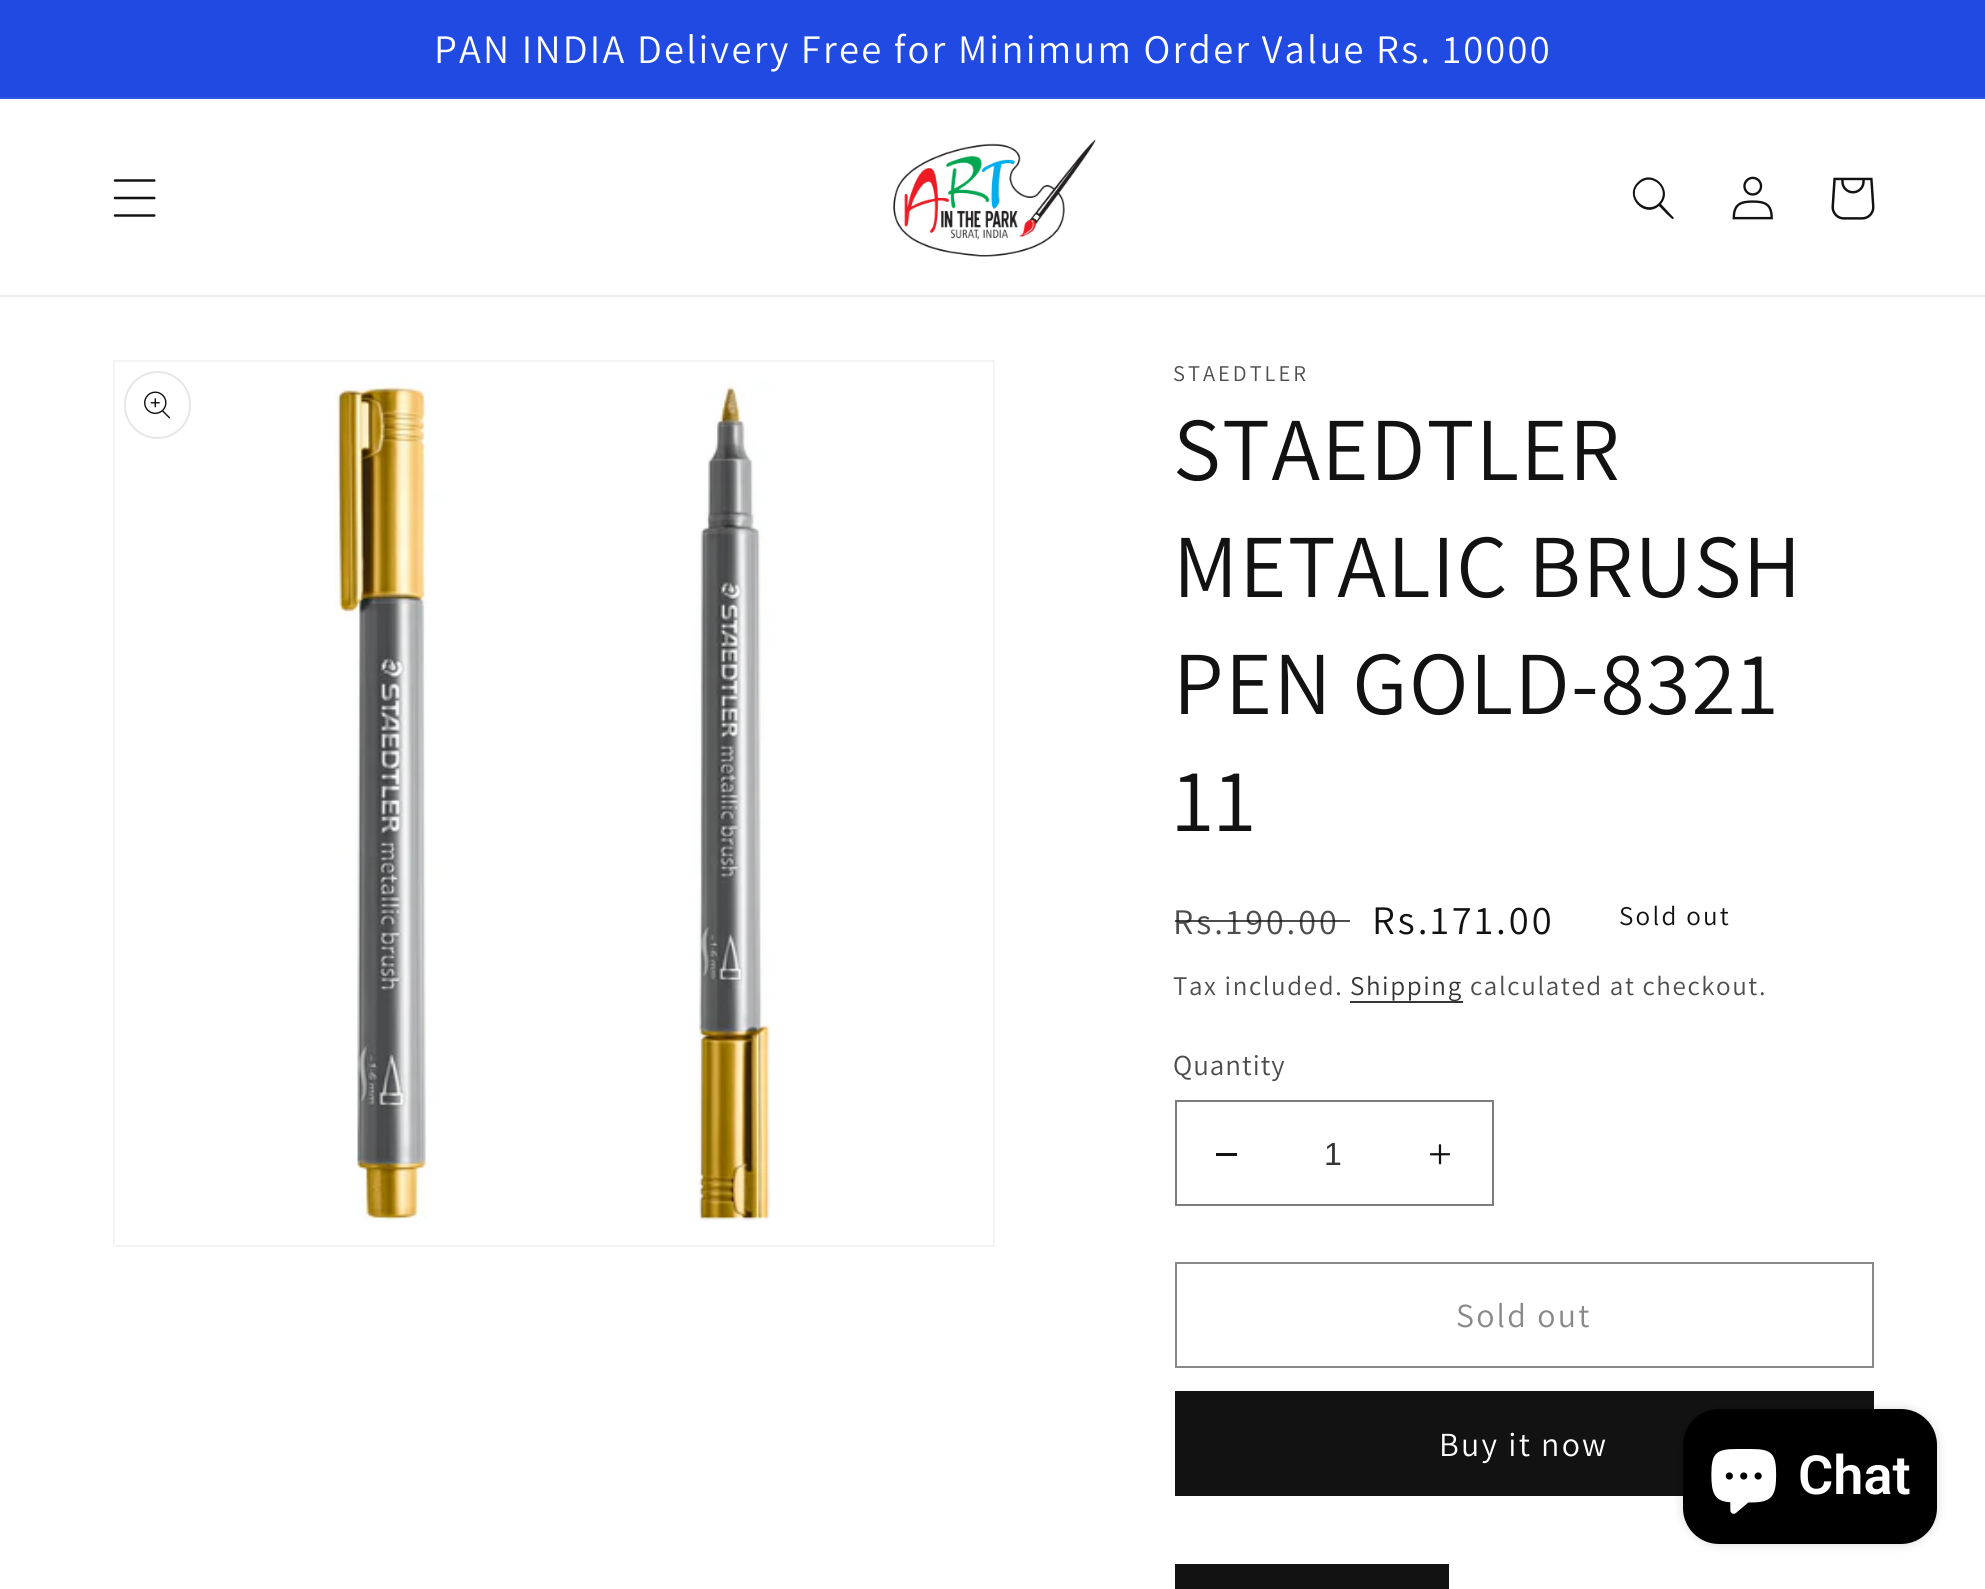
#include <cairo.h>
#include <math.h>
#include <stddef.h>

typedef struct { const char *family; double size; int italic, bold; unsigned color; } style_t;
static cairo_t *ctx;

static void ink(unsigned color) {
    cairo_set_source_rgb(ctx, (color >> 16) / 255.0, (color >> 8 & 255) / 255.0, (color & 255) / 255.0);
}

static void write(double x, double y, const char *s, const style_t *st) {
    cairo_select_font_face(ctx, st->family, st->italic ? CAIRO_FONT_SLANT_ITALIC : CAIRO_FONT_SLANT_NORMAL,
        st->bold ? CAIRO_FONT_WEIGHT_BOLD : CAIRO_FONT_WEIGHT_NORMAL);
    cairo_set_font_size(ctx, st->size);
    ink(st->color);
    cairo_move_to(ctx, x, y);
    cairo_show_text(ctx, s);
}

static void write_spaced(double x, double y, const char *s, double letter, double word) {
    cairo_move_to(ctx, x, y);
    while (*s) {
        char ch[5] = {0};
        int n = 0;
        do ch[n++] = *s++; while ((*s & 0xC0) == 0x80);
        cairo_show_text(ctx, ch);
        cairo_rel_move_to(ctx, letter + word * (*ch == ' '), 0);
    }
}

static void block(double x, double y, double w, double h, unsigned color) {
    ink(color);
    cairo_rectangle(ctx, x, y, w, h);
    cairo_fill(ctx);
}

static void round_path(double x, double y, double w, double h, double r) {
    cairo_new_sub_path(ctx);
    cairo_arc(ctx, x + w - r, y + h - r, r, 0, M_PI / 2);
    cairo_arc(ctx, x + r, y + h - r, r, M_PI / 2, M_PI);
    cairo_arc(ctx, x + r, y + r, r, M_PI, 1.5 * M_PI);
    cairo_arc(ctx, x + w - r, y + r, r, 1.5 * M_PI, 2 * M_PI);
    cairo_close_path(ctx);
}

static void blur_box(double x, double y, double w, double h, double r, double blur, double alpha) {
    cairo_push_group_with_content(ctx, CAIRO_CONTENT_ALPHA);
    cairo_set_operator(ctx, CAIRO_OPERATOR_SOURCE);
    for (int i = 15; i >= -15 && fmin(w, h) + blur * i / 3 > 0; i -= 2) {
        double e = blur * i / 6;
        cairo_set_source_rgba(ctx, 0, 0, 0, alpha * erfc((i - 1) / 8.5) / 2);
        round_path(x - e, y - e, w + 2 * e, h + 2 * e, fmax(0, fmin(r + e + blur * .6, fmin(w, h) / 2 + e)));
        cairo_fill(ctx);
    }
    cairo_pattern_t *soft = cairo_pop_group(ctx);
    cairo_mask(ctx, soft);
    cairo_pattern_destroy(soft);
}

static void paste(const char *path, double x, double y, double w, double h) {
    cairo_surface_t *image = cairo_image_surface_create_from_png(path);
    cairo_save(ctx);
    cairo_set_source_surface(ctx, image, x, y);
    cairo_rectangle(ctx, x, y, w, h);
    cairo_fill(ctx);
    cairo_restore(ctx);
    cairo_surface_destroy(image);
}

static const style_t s1 = {"Liberation Sans", 32, 0, 0, 0x353535};
static const style_t s2 = {"Roboto SemiBold", 54, 0, 0, 0xffffff};

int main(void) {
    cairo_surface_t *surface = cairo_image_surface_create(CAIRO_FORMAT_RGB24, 1985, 1589);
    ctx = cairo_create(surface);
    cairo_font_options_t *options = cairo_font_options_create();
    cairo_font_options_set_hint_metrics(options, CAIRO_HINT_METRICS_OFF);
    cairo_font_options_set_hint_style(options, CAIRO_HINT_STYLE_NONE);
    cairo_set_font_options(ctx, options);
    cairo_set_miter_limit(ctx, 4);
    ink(0xffffff);
    cairo_paint(ctx);
    block(0, 0, 1985, 97, 0x204ae1);
    block(0, 97, 1985, 2, 0x3258e3);
    cairo_select_font_face(ctx, "Assistant", CAIRO_FONT_SLANT_NORMAL, CAIRO_FONT_WEIGHT_NORMAL);
    cairo_set_font_size(ctx, 40.5);
    ink(0xffffff);
    write_spaced(434, 63, "PAN INDIA Delivery Free for Minimum Order Value Rs. 10000", 2.25, 0);
    block(0, 295, 1985, 2, 0xececec);
    paste("pic1.png", 113, 179, 43, 38);
    paste("pic2.png", 893, 139, 203, 118);
    ink(0x121212);
    cairo_set_fill_rule(ctx, CAIRO_FILL_RULE_EVEN_ODD);
    cairo_new_path(ctx);
    cairo_move_to(ctx, 1659, 203);
    cairo_curve_to(ctx, 1646, 216, 1626, 196, 1639, 184);
    cairo_curve_to(ctx, 1652, 171, 1671, 190, 1659, 203);
    cairo_close_path(ctx);
    cairo_move_to(ctx, 1659, 206);
    cairo_curve_to(ctx, 1644, 219, 1623, 196, 1638, 182);
    cairo_curve_to(ctx, 1652, 168, 1674, 189, 1661, 204);
    cairo_line_to(ctx, 1674, 218);
    cairo_line_to(ctx, 1673, 219);
    cairo_curve_to(ctx, 1672, 220, 1661, 208, 1659, 206);
    cairo_close_path(ctx);
    cairo_fill(ctx);
    paste("pic3.png", 1732, 176, 41, 44);
    paste("pic4.png", 1831, 177, 44, 43);
    cairo_rectangle(ctx, 114, 361, 880, 885);
    ink(0xf3f3f3);
    cairo_stroke(ctx);
    paste("pic5.png", 334, 379, 437, 842);
    round_path(125, 372, 65, 66, 32.5);
    ink(0xe7e7e7);
    cairo_stroke(ctx);
    paste("pic6.png", 144, 391, 27, 28);
    cairo_set_font_size(ctx, 22.5);
    ink(0x4d4d4d);
    write_spaced(1173, 381, "STAEDTLER", 3, 0);
    cairo_set_font_size(ctx, 90);
    ink(0x121212);
    write_spaced(1173, 480, "STAEDTLER", 1.4, 0);
    write_spaced(1173, 597, "METALIC BRUSH", 1.4, 0);
    write_spaced(1173, 714, "PEN GOLD-8321", 1.4, 0);
    write_spaced(1173, 831, "11", 1.4, 0);
    cairo_set_font_size(ctx, 36);
    ink(0x4d4d4d);
    write_spaced(1173, 934, "Rs.190.00", 3, 0);
    cairo_set_source_rgba(ctx, 0.071, 0.071, 0.071, 0.75);
    cairo_rectangle(ctx, 1175, 920, 175, 2);
    cairo_fill(ctx);
    cairo_set_font_size(ctx, 40.5);
    ink(0x121212);
    write_spaced(1372, 934, "Rs.171.00", 3, 0);
    cairo_set_font_size(ctx, 27);
    write_spaced(1619, 925, "Sold out", 2.25, 0);
    ink(0x4d4d4d);
    write_spaced(1173, 995, "Tax included.", 1.6, 0);
    block(1350, 1001, 113, 2, 0x363636);
    ink(0x353535);
    write_spaced(1350, 995, "Shipping", 1.6, 0);
    ink(0x4d4d4d);
    write_spaced(1470, 995, "calculated at checkout.", 1.6, 0);
    cairo_set_font_size(ctx, 29);
    write_spaced(1173, 1075, "Quantity", 1, 0);
    block(1216, 1153, 21, 3, 0x121212);
    paste("pic7.png", 1429, 1144, 22, 21);
    cairo_rectangle(ctx, 1176, 1101, 317, 104);
    ink(0x7d7d7d);
    cairo_stroke(ctx);
    write(1324, 1165, "1", &s1);
    cairo_rectangle(ctx, 1176, 1263, 697, 104);
    ink(0x898989);
    cairo_stroke(ctx);
    cairo_select_font_face(ctx, "Assistant", CAIRO_FONT_SLANT_NORMAL, CAIRO_FONT_WEIGHT_NORMAL);
    cairo_set_font_size(ctx, 33.75);
    write_spaced(1456, 1327, "Sold out", 2.25, 0);
    block(1175, 1391, 699, 105, 0x121212);
    ink(0xffffff);
    write_spaced(1439, 1456, "Buy it now", 2.25, 0);
    block(1175, 1564, 274, 25, 0x121212);
    ink(0x000000);
    blur_box(1683, 1409, 254, 135, 36, 5.5, 0.15);
    ink(0x000000);
    round_path(1683, 1409, 254, 135, 36);
    cairo_fill(ctx);
    paste("pic8.png", 1711, 1449, 66, 65);
    write(1798, 1494, "Chat", &s2);
    cairo_surface_write_to_png(surface, "screenshot.png");
    cairo_font_options_destroy(options);
    cairo_destroy(ctx);
    cairo_surface_destroy(surface);
    return 0;
}
